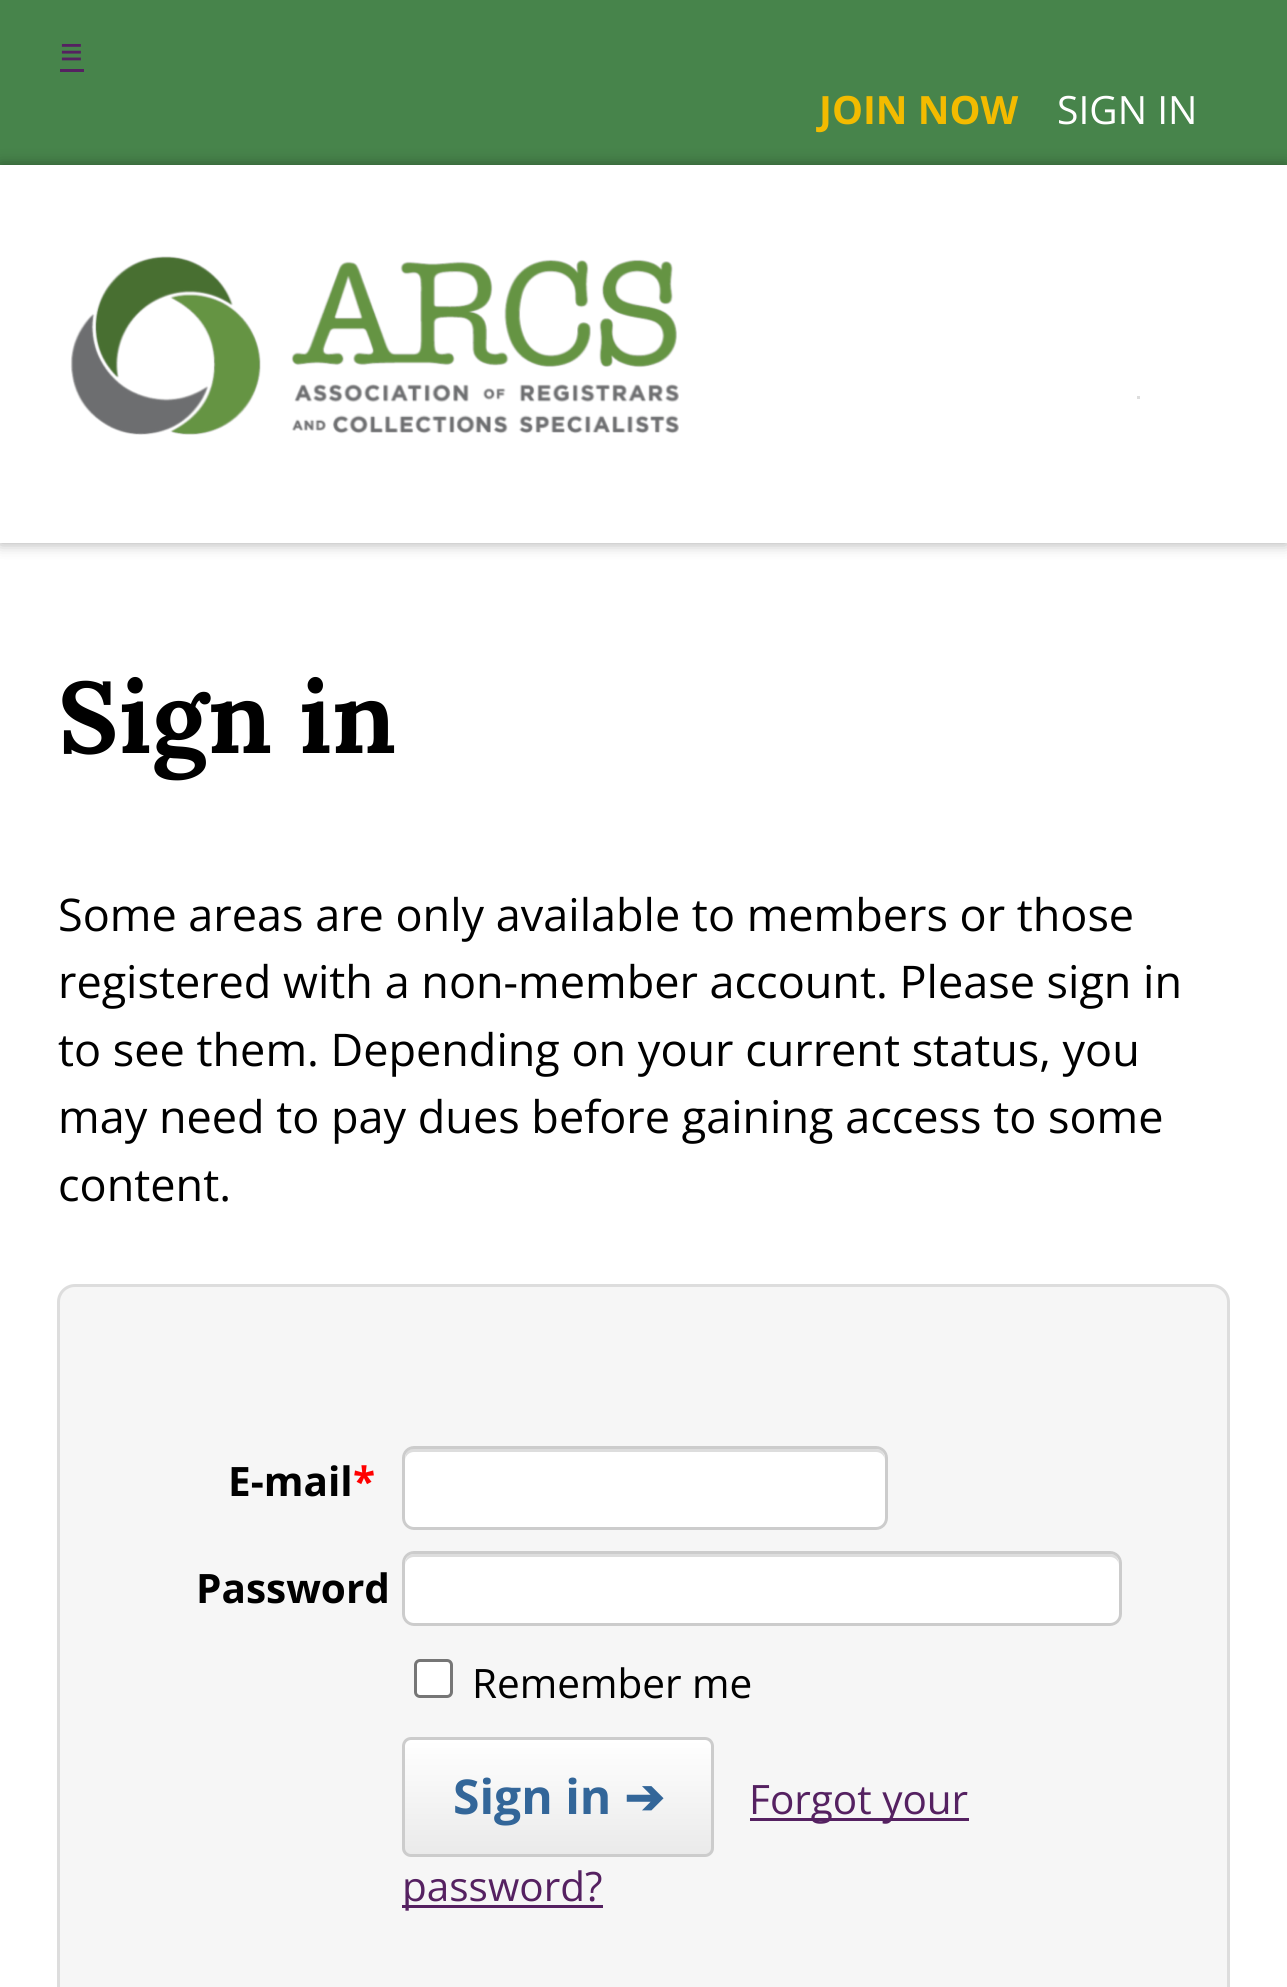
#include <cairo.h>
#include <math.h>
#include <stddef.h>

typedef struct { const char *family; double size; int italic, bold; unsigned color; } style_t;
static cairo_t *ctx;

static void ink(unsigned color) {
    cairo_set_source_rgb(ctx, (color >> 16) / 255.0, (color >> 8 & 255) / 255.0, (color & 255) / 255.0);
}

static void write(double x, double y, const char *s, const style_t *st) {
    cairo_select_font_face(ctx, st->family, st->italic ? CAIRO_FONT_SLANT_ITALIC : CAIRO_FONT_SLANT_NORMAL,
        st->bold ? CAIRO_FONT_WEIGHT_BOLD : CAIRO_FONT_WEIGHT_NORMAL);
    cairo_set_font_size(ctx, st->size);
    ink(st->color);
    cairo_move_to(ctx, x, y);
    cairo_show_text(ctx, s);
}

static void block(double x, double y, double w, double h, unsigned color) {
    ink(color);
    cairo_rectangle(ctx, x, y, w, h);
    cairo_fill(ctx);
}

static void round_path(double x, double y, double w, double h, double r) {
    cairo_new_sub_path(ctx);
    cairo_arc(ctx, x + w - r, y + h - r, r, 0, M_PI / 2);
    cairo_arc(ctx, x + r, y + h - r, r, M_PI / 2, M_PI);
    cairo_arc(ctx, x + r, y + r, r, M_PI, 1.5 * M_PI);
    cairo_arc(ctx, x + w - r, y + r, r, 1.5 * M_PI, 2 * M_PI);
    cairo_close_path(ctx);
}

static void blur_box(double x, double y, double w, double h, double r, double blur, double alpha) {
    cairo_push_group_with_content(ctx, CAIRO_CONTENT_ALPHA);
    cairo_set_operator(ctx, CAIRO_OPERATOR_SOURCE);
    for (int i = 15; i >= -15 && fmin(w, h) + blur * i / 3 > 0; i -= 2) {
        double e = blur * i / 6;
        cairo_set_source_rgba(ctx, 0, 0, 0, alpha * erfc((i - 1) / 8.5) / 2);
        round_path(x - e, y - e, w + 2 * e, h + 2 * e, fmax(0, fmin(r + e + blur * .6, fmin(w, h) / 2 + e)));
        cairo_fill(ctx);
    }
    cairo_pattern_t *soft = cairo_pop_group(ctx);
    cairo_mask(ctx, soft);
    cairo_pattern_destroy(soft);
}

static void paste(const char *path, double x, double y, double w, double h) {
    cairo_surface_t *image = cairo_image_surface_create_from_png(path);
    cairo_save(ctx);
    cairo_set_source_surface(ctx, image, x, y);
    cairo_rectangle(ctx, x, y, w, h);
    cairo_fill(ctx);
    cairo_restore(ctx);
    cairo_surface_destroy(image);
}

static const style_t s1 = {"Liberation Sans", 39, 0, 0, 0x552161};
static const style_t s2 = {"Open Sans", 39, 0, 1, 0xf3bb00};
static const style_t s3 = {"Open Sans", 39, 0, 0, 0xffffff};
static const style_t s4 = {"Lora", 101, 0, 1, 0x000000};
static const style_t s5 = {"Open Sans", 45, 0, 0, 0x000000};
static const style_t s6 = {"Open Sans", 40.5, 0, 1, 0x000000};
static const style_t s7 = {"Open Sans", 40.5, 0, 1, 0xff0000};
static const style_t s8 = {"Open Sans", 40.5, 0, 0, 0x000000};
static const style_t s9 = {"Open Sans", 48, 0, 1, 0x336699};
static const style_t s10 = {"DejaVu Sans", 48, 0, 1, 0x336699};
static const style_t s11 = {"Open Sans", 40.5, 0, 0, 0x552161};

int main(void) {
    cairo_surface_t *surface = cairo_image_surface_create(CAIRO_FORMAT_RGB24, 1287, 1987);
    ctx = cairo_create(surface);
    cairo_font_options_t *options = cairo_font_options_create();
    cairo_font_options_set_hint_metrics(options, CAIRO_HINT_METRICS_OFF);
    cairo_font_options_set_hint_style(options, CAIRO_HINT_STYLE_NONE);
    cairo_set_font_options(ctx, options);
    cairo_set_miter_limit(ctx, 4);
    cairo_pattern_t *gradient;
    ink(0xffffff);
    cairo_paint(ctx);
    block(0, 0, 1287, 165, 0x47844b);
    write(60, 65, "≡", &s1);
    block(60, 69, 24, 3, 0x552161);
    write(819, 124, "JOIN NOW", &s2);
    write(1057, 124, "SIGN IN", &s3);
    cairo_save(ctx);
    cairo_set_fill_rule(ctx, CAIRO_FILL_RULE_EVEN_ODD);
    cairo_new_path(ctx);
    cairo_move_to(ctx, 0, 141);
    cairo_line_to(ctx, 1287, 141);
    cairo_line_to(ctx, 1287, 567);
    cairo_line_to(ctx, 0, 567);
    cairo_close_path(ctx);
    cairo_move_to(ctx, 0, 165);
    cairo_line_to(ctx, 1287, 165);
    cairo_line_to(ctx, 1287, 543);
    cairo_line_to(ctx, 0, 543);
    cairo_close_path(ctx);
    cairo_clip(ctx);
    ink(0x000000);
    blur_box(0, 165, 1287, 378, 0, 7.5, 0.35);
    cairo_restore(ctx);
    paste("pic1.png", 70, 256, 609, 179);
    block(1137, 396, 3, 3, 0xdddddd);
    write(58, 753, "Sign in", &s4);
    write(58, 931, "Some areas are only available to members or those", &s5);
    write(58, 998, "registered with a non-member account. Please sign in", &s5);
    write(58, 1066, "to see them. Depending on your current status, you", &s5);
    write(58, 1133, "may need to pay dues before gaining access to some", &s5);
    write(58, 1201, "content.", &s5);
    ink(0xf6f6f6);
    round_path(58.5, 1285.5, 1170, 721, 16.5);
    cairo_fill_preserve(ctx);
    ink(0xdddddd);
    cairo_set_line_width(ctx, 3);
    cairo_stroke(ctx);
    write(228, 1496, "E-mail", &s6);
    write(353, 1496, "*", &s7);
    ink(0xffffff);
    round_path(402, 1446, 486, 84, 12);
    cairo_fill(ctx);
    ink(0xdddddd);
    cairo_new_path(ctx);
    cairo_move_to(ctx, 414, 1452);
    cairo_line_to(ctx, 876, 1452);
    cairo_curve_to(ctx, 881, 1452, 885, 1456, 885, 1461);
    cairo_curve_to(ctx, 885, 1455, 883, 1449, 876, 1449);
    cairo_line_to(ctx, 412, 1449);
    cairo_curve_to(ctx, 406, 1450, 405, 1456, 405, 1461);
    cairo_curve_to(ctx, 405, 1456, 409, 1452, 414, 1452);
    cairo_close_path(ctx);
    cairo_fill(ctx);
    round_path(403.5, 1447.5, 483, 81, 10.5);
    ink(0xcccccc);
    cairo_stroke(ctx);
    write(196, 1603, "Password", &s6);
    ink(0xffffff);
    round_path(402, 1551, 720, 75, 12);
    cairo_fill(ctx);
    ink(0xdddddd);
    cairo_new_path(ctx);
    cairo_move_to(ctx, 414, 1557);
    cairo_line_to(ctx, 1110, 1557);
    cairo_curve_to(ctx, 1115, 1557, 1119, 1561, 1119, 1566);
    cairo_curve_to(ctx, 1119, 1560, 1117, 1554, 1110, 1554);
    cairo_line_to(ctx, 414, 1554);
    cairo_curve_to(ctx, 407, 1554, 405, 1560, 405, 1566);
    cairo_curve_to(ctx, 405, 1561, 409, 1557, 414, 1557);
    cairo_close_path(ctx);
    cairo_fill(ctx);
    round_path(403.5, 1552.5, 717, 72, 10.5);
    ink(0xcccccc);
    cairo_stroke(ctx);
    ink(0xffffff);
    round_path(415.5, 1660.5, 36, 36, 4.5);
    cairo_fill_preserve(ctx);
    ink(0x767676);
    cairo_stroke(ctx);
    write(472, 1698, "Remember me", &s8);
    cairo_save(ctx);
    round_path(402, 1737, 312, 120, 9);
    cairo_clip(ctx);
    gradient = cairo_pattern_create_linear(558, 1740, 558, 1854);
    cairo_pattern_add_color_stop_rgba(gradient, 0, 1, 1, 1, 1);
    cairo_pattern_add_color_stop_rgba(gradient, 1, 0.918, 0.918, 0.918, 1);
    cairo_set_source(ctx, gradient);
    cairo_pattern_destroy(gradient);
    cairo_rectangle(ctx, 402, 1740, 312, 114);
    cairo_fill(ctx);
    cairo_restore(ctx);
    round_path(403.5, 1738.5, 309, 117, 7.5);
    ink(0xcccccc);
    cairo_stroke(ctx);
    write(453, 1814, "Sign in", &s9);
    write(624, 1814, "➔", &s10);
    block(750, 1818, 219, 3, 0x552161);
    write(749, 1814, "Forgot your", &s11);
    block(402, 1905, 201, 3, 0x552161);
    write(402, 1901, "password?", &s11);
    cairo_surface_write_to_png(surface, "screenshot.png");
    cairo_font_options_destroy(options);
    cairo_destroy(ctx);
    cairo_surface_destroy(surface);
    return 0;
}
